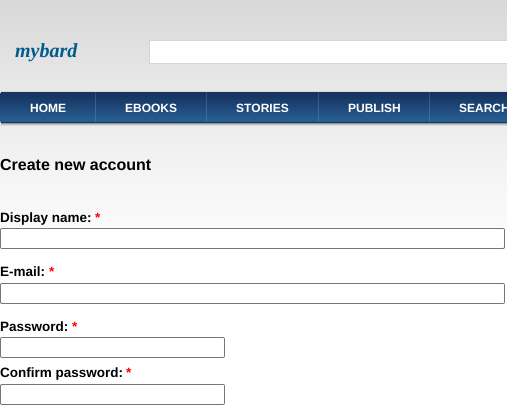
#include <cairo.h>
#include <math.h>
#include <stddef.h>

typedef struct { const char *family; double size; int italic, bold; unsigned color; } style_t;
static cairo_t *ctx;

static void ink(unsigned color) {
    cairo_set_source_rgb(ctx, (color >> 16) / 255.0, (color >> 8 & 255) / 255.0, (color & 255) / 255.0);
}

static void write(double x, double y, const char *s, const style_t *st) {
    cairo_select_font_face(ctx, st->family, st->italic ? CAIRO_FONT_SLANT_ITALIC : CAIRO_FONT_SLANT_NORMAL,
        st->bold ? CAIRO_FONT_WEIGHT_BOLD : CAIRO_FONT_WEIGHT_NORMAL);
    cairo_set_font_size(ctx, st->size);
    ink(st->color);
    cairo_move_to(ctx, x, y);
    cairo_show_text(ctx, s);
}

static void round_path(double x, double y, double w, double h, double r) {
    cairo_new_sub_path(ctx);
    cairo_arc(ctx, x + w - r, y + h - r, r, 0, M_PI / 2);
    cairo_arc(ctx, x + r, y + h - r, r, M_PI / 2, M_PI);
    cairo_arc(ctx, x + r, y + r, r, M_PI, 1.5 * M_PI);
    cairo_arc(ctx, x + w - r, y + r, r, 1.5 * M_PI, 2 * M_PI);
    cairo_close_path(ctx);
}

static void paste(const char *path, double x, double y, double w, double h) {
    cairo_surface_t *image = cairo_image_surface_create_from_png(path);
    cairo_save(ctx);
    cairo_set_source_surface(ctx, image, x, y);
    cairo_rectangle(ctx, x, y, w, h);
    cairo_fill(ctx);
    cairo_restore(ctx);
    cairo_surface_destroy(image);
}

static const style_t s1 = {"Liberation Serif", 20, 1, 1, 0x005a8c};
static const style_t s2 = {"Liberation Sans", 12, 0, 1, 0xffffff};
static const style_t s3 = {"Liberation Sans", 16, 0, 1, 0x000000};
static const style_t s4 = {"Liberation Sans", 13.5, 0, 1, 0x000000};
static const style_t s5 = {"Liberation Sans", 13.5, 0, 1, 0xff0000};

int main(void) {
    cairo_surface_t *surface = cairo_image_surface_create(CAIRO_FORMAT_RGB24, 507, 418);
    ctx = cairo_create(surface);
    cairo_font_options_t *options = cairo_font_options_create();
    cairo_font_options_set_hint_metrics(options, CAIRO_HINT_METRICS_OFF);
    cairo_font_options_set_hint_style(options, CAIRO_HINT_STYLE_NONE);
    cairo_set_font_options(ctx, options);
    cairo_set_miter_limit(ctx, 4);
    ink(0xffffff);
    cairo_paint(ctx);
    paste("pic1.png", 0, 0, 507, 230);
    write(15, 57, "mybard", &s1);
    ink(0xffffff);
    cairo_rectangle(ctx, 149.5, 40.5, 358, 23);
    cairo_fill_preserve(ctx);
    ink(0xd5d5d5);
    cairo_set_line_width(ctx, 1);
    cairo_stroke(ctx);
    paste("pic2.png", 1, 91, 506, 35);
    paste("pic3.png", 0, 91, 1, 35);
    paste("pic4.png", 95, 92, 1, 31);
    write(30, 112, "HOME", &s2);
    paste("pic4.png", 206, 92, 1, 31);
    write(125, 112, "EBOOKS", &s2);
    paste("pic4.png", 318, 92, 1, 31);
    write(236, 112, "STORIES", &s2);
    paste("pic4.png", 429, 92, 1, 31);
    write(348, 112, "PUBLISH", &s2);
    write(459, 112, "SEARCH", &s2);
    write(0, 170, "Create new account", &s3);
    write(0, 222, "Display name:", &s4);
    write(95, 222, "*", &s5);
    ink(0xffffff);
    round_path(0.5, 228.5, 504, 20, 1.5);
    cairo_fill_preserve(ctx);
    ink(0x767676);
    cairo_stroke(ctx);
    write(0, 276, "E-mail:", &s4);
    write(49, 276, "*", &s5);
    round_path(0.5, 283.5, 504, 20, 1.5);
    ink(0x767676);
    cairo_stroke(ctx);
    write(0, 331, "Password:", &s4);
    write(72, 331, "*", &s5);
    round_path(0.5, 337.5, 224, 20, 1.5);
    ink(0x767676);
    cairo_stroke(ctx);
    write(0, 377, "Confirm password:", &s4);
    write(126, 377, "*", &s5);
    round_path(0.5, 384.5, 224, 20, 1.5);
    ink(0x767676);
    cairo_stroke(ctx);
    cairo_surface_write_to_png(surface, "screenshot.png");
    cairo_font_options_destroy(options);
    cairo_destroy(ctx);
    cairo_surface_destroy(surface);
    return 0;
}
